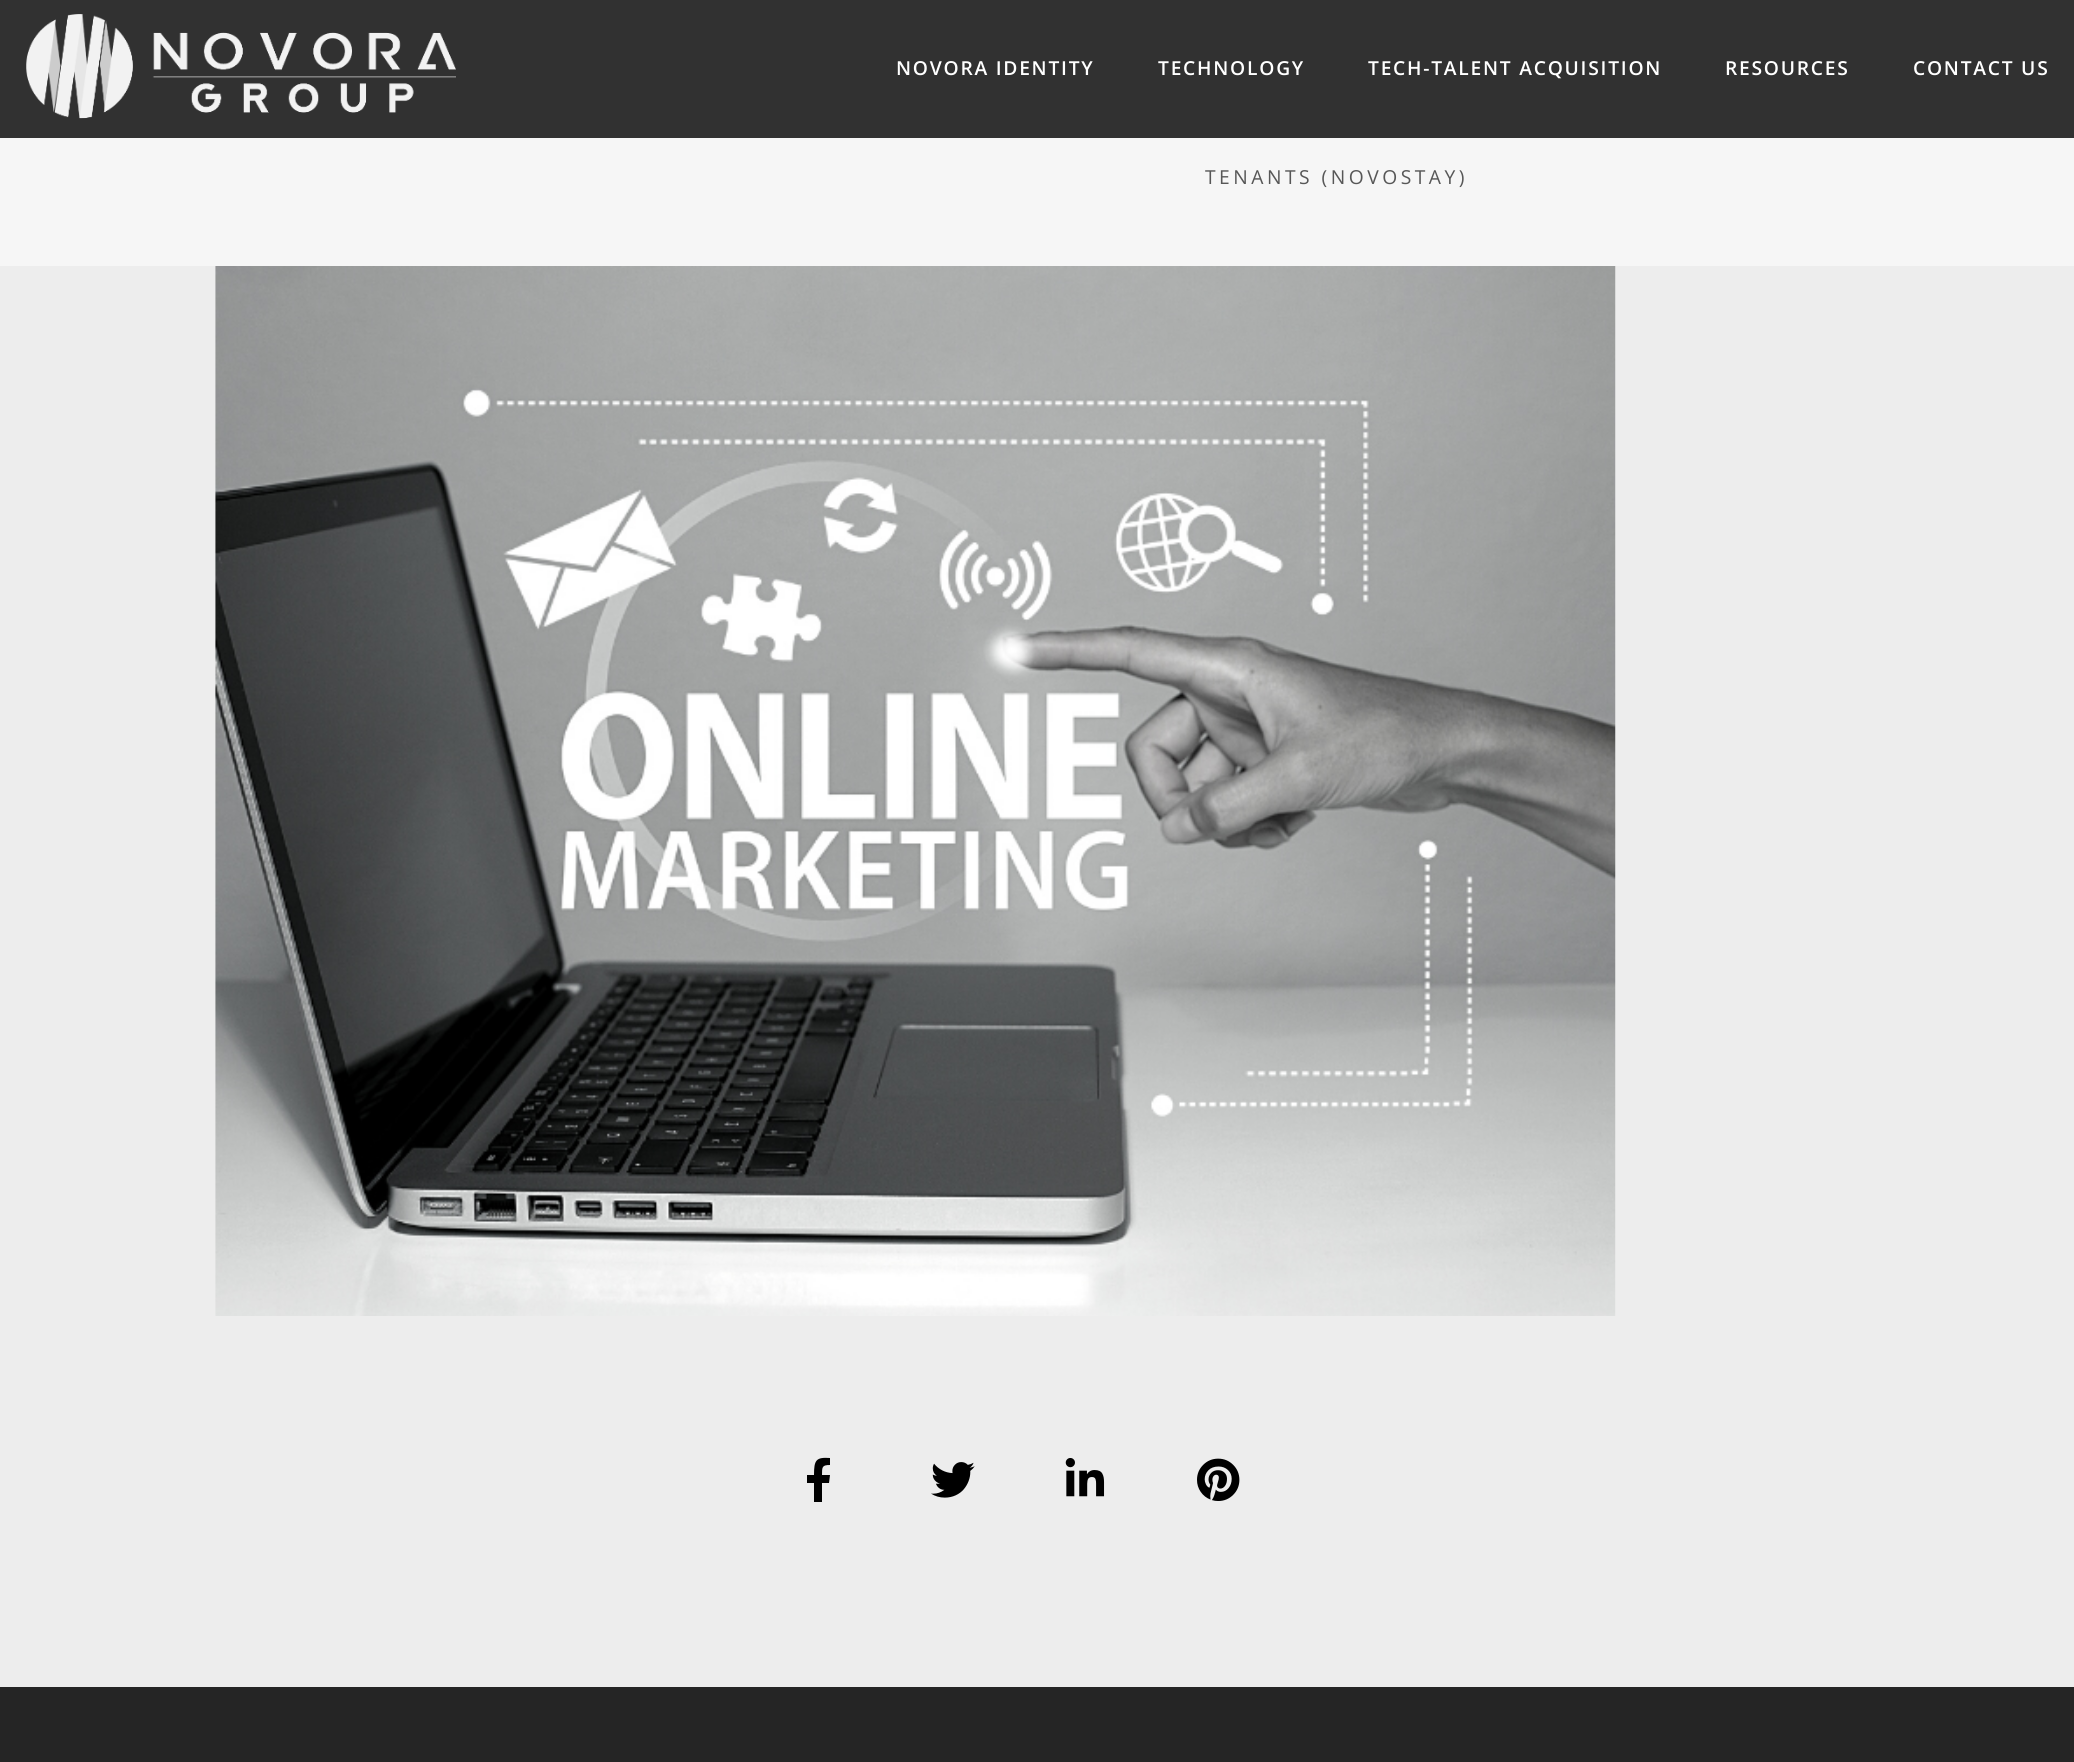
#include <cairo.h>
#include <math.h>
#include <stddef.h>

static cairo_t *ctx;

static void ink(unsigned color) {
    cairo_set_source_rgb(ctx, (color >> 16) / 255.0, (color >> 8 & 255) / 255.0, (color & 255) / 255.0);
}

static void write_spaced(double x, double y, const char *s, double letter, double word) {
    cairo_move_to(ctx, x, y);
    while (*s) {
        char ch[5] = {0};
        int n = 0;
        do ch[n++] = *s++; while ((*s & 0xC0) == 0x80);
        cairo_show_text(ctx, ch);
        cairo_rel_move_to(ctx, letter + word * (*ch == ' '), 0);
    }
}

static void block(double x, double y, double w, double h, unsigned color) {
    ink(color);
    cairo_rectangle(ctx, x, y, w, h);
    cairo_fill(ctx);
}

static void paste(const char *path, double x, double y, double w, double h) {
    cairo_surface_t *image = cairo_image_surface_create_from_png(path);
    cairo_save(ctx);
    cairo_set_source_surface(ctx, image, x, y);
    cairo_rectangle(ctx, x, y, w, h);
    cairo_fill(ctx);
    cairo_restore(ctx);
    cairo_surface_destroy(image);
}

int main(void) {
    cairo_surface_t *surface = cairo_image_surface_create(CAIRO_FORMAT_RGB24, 2074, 1762);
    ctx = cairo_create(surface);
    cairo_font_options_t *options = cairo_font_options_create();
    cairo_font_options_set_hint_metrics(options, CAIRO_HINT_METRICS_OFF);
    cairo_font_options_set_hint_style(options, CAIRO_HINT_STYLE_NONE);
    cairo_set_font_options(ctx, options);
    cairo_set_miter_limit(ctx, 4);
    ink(0xededed);
    cairo_paint(ctx);
    block(0, 0, 2074, 266, 0xf6f6f6);
    cairo_set_source_rgba(ctx, 0, 0, 0, 0.8);
    cairo_rectangle(ctx, 0, 0, 2074, 138);
    cairo_fill(ctx);
    paste("pic1.png", 26, 14, 430, 105);
    cairo_select_font_face(ctx, "Open Sans SemiBold", CAIRO_FONT_SLANT_NORMAL, CAIRO_FONT_WEIGHT_NORMAL);
    cairo_set_font_size(ctx, 19.25);
    ink(0xffffff);
    write_spaced(896, 75, "NOVORA IDENTITY", 1.75, 0);
    write_spaced(1158, 75, "TECHNOLOGY", 1.75, 0);
    write_spaced(1368, 75, "TECH-TALENT ACQUISITION", 1.75, 0);
    write_spaced(1725, 75, "RESOURCES", 1.75, 0);
    write_spaced(1913, 75, "CONTACT US", 1.75, 0);
    cairo_select_font_face(ctx, "Open Sans", CAIRO_FONT_SLANT_NORMAL, CAIRO_FONT_WEIGHT_NORMAL);
    ink(0x575757);
    write_spaced(1205, 184, "TENANTS (NOVOSTAY)", 3.5, 0);
    paste("pic2.png", 215, 266, 1401, 1050);
    ink(0x000000);
    cairo_new_path(ctx);
    cairo_move_to(ctx, 829, 1483);
    cairo_line_to(ctx, 822, 1483);
    cairo_line_to(ctx, 822, 1502);
    cairo_line_to(ctx, 814, 1502);
    cairo_line_to(ctx, 814, 1483);
    cairo_line_to(ctx, 807, 1483);
    cairo_line_to(ctx, 807, 1475);
    cairo_line_to(ctx, 814, 1475);
    cairo_curve_to(ctx, 814, 1460, 816, 1457, 830, 1458);
    cairo_line_to(ctx, 830, 1465);
    cairo_curve_to(ctx, 822, 1465, 822, 1467, 822, 1475);
    cairo_line_to(ctx, 830, 1475);
    cairo_close_path(ctx);
    cairo_fill(ctx);
    paste("pic3.png", 931, 1462, 44, 36);
    paste("pic4.png", 1065, 1458, 40, 39);
    paste("pic5.png", 1197, 1458, 43, 43);
    block(0, 1687, 2074, 75, 0x252525);
    cairo_surface_write_to_png(surface, "screenshot.png");
    cairo_font_options_destroy(options);
    cairo_destroy(ctx);
    cairo_surface_destroy(surface);
    return 0;
}
